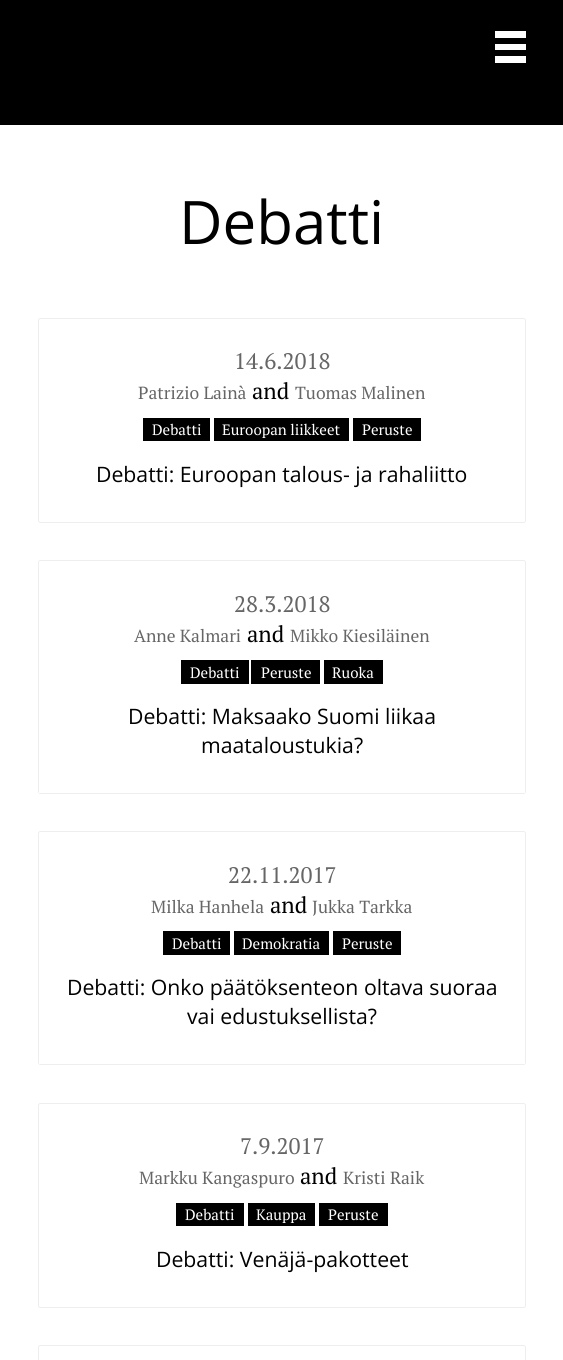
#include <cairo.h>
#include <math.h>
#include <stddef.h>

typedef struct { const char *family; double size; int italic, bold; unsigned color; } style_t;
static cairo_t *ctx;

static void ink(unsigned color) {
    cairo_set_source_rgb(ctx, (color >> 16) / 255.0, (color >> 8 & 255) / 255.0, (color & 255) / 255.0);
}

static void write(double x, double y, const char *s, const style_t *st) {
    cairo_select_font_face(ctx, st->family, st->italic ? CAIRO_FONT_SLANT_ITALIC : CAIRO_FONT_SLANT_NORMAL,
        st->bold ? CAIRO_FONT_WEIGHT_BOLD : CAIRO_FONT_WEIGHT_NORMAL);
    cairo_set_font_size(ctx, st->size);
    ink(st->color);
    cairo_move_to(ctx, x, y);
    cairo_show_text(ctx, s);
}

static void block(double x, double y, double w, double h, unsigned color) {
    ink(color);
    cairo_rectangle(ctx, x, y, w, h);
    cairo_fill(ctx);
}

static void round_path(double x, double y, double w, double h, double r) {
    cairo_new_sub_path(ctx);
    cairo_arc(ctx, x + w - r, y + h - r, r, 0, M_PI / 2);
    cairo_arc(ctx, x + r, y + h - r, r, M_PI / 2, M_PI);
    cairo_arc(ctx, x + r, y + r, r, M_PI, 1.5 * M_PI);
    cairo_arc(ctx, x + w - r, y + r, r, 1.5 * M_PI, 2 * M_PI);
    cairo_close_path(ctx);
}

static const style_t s1 = {"Open Sans", 60, 0, 0, 0x000000};
static const style_t s2 = {"PT Serif", 22.5, 0, 0, 0x666666};
static const style_t s3 = {"PT Serif", 17.5, 0, 0, 0x666666};
static const style_t s4 = {"PT Serif", 22.5, 0, 0, 0x000000};
static const style_t s5 = {"PT Serif", 15, 0, 0, 0xffffff};
static const style_t s6 = {"Open Sans", 21.25, 0, 0, 0x000000};

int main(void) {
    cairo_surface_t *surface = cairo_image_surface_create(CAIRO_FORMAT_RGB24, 563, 1360);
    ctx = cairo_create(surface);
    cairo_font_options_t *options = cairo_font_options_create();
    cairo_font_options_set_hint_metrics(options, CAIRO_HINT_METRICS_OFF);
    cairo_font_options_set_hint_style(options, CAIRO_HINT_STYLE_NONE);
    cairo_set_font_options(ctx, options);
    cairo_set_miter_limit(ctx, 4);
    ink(0xffffff);
    cairo_paint(ctx);
    block(0, 0, 563, 125, 0x000000);
    block(495, 31, 31, 7, 0xffffff);
    block(495, 44, 31, 6, 0xffffff);
    block(495, 56, 31, 7, 0xffffff);
    write(179, 244, "Debatti", &s1);
    round_path(38.5, 318.5, 487, 204, 2);
    ink(0xeeeeee);
    cairo_set_line_width(ctx, 1);
    cairo_stroke(ctx);
    write(234, 369, "14.6.2018", &s2);
    write(138, 399, "Patrizio Lainà", &s3);
    write(252, 399, "and", &s4);
    write(295, 399, "Tuomas Malinen", &s3);
    block(143, 418, 67, 23, 0x000000);
    write(152, 435, "Debatti", &s5);
    block(214, 418, 135, 23, 0x000000);
    write(222, 435, "Euroopan liikkeet", &s5);
    block(353, 418, 68, 23, 0x000000);
    write(362, 435, "Peruste", &s5);
    write(96, 482, "Debatti: Euroopan talous- ja rahaliitto", &s6);
    round_path(38.5, 560.5, 487, 233, 2);
    ink(0xeeeeee);
    cairo_stroke(ctx);
    write(234, 612, "28.3.2018", &s2);
    write(134, 642, "Anne Kalmari", &s3);
    write(247, 642, "and", &s4);
    write(290, 642, "Mikko Kiesiläinen", &s3);
    block(181, 660, 68, 24, 0x000000);
    write(190, 678, "Debatti", &s5);
    block(251, 660, 69, 24, 0x000000);
    write(261, 678, "Peruste", &s5);
    block(324, 660, 59, 24, 0x000000);
    write(332, 678, "Ruoka", &s5);
    write(128, 724, "Debatti: Maksaako Suomi liikaa", &s6);
    write(201, 753, "maataloustukia?", &s6);
    block(39, 792, 486, 1, 0xffffff);
    round_path(38.5, 831.5, 487, 233, 2);
    ink(0xeeeeee);
    cairo_stroke(ctx);
    write(228, 883, "22.11.2017", &s2);
    write(151, 913, "Milka Hanhela", &s3);
    write(270, 913, "and", &s4);
    write(312, 913, "Jukka Tarkka", &s3);
    block(163, 931, 67, 24, 0x000000);
    write(172, 949, "Debatti", &s5);
    block(234, 931, 95, 24, 0x000000);
    write(242, 949, "Demokratia", &s5);
    block(333, 931, 68, 24, 0x000000);
    write(342, 949, "Peruste", &s5);
    write(67, 995, "Debatti: Onko päätöksenteon oltava suoraa", &s6);
    write(187, 1024, "vai edustuksellista?", &s6);
    block(39, 1063, 486, 1, 0xffffff);
    round_path(38.5, 1103.5, 487, 204, 2);
    ink(0xeeeeee);
    cairo_stroke(ctx);
    write(240, 1154, "7.9.2017", &s2);
    write(139, 1184, "Markku Kangaspuro", &s3);
    write(300, 1184, "and", &s4);
    write(343, 1184, "Kristi Raik", &s3);
    block(176, 1203, 68, 23, 0x000000);
    write(185, 1220, "Debatti", &s5);
    block(248, 1203, 67, 23, 0x000000);
    write(256, 1220, "Kauppa", &s5);
    block(319, 1203, 69, 23, 0x000000);
    write(328, 1220, "Peruste", &s5);
    write(156, 1267, "Debatti: Venäjä-pakotteet", &s6);
    round_path(38.5, 1345.5, 487, 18, 2);
    ink(0xeeeeee);
    cairo_stroke(ctx);
    cairo_surface_write_to_png(surface, "screenshot.png");
    cairo_font_options_destroy(options);
    cairo_destroy(ctx);
    cairo_surface_destroy(surface);
    return 0;
}
